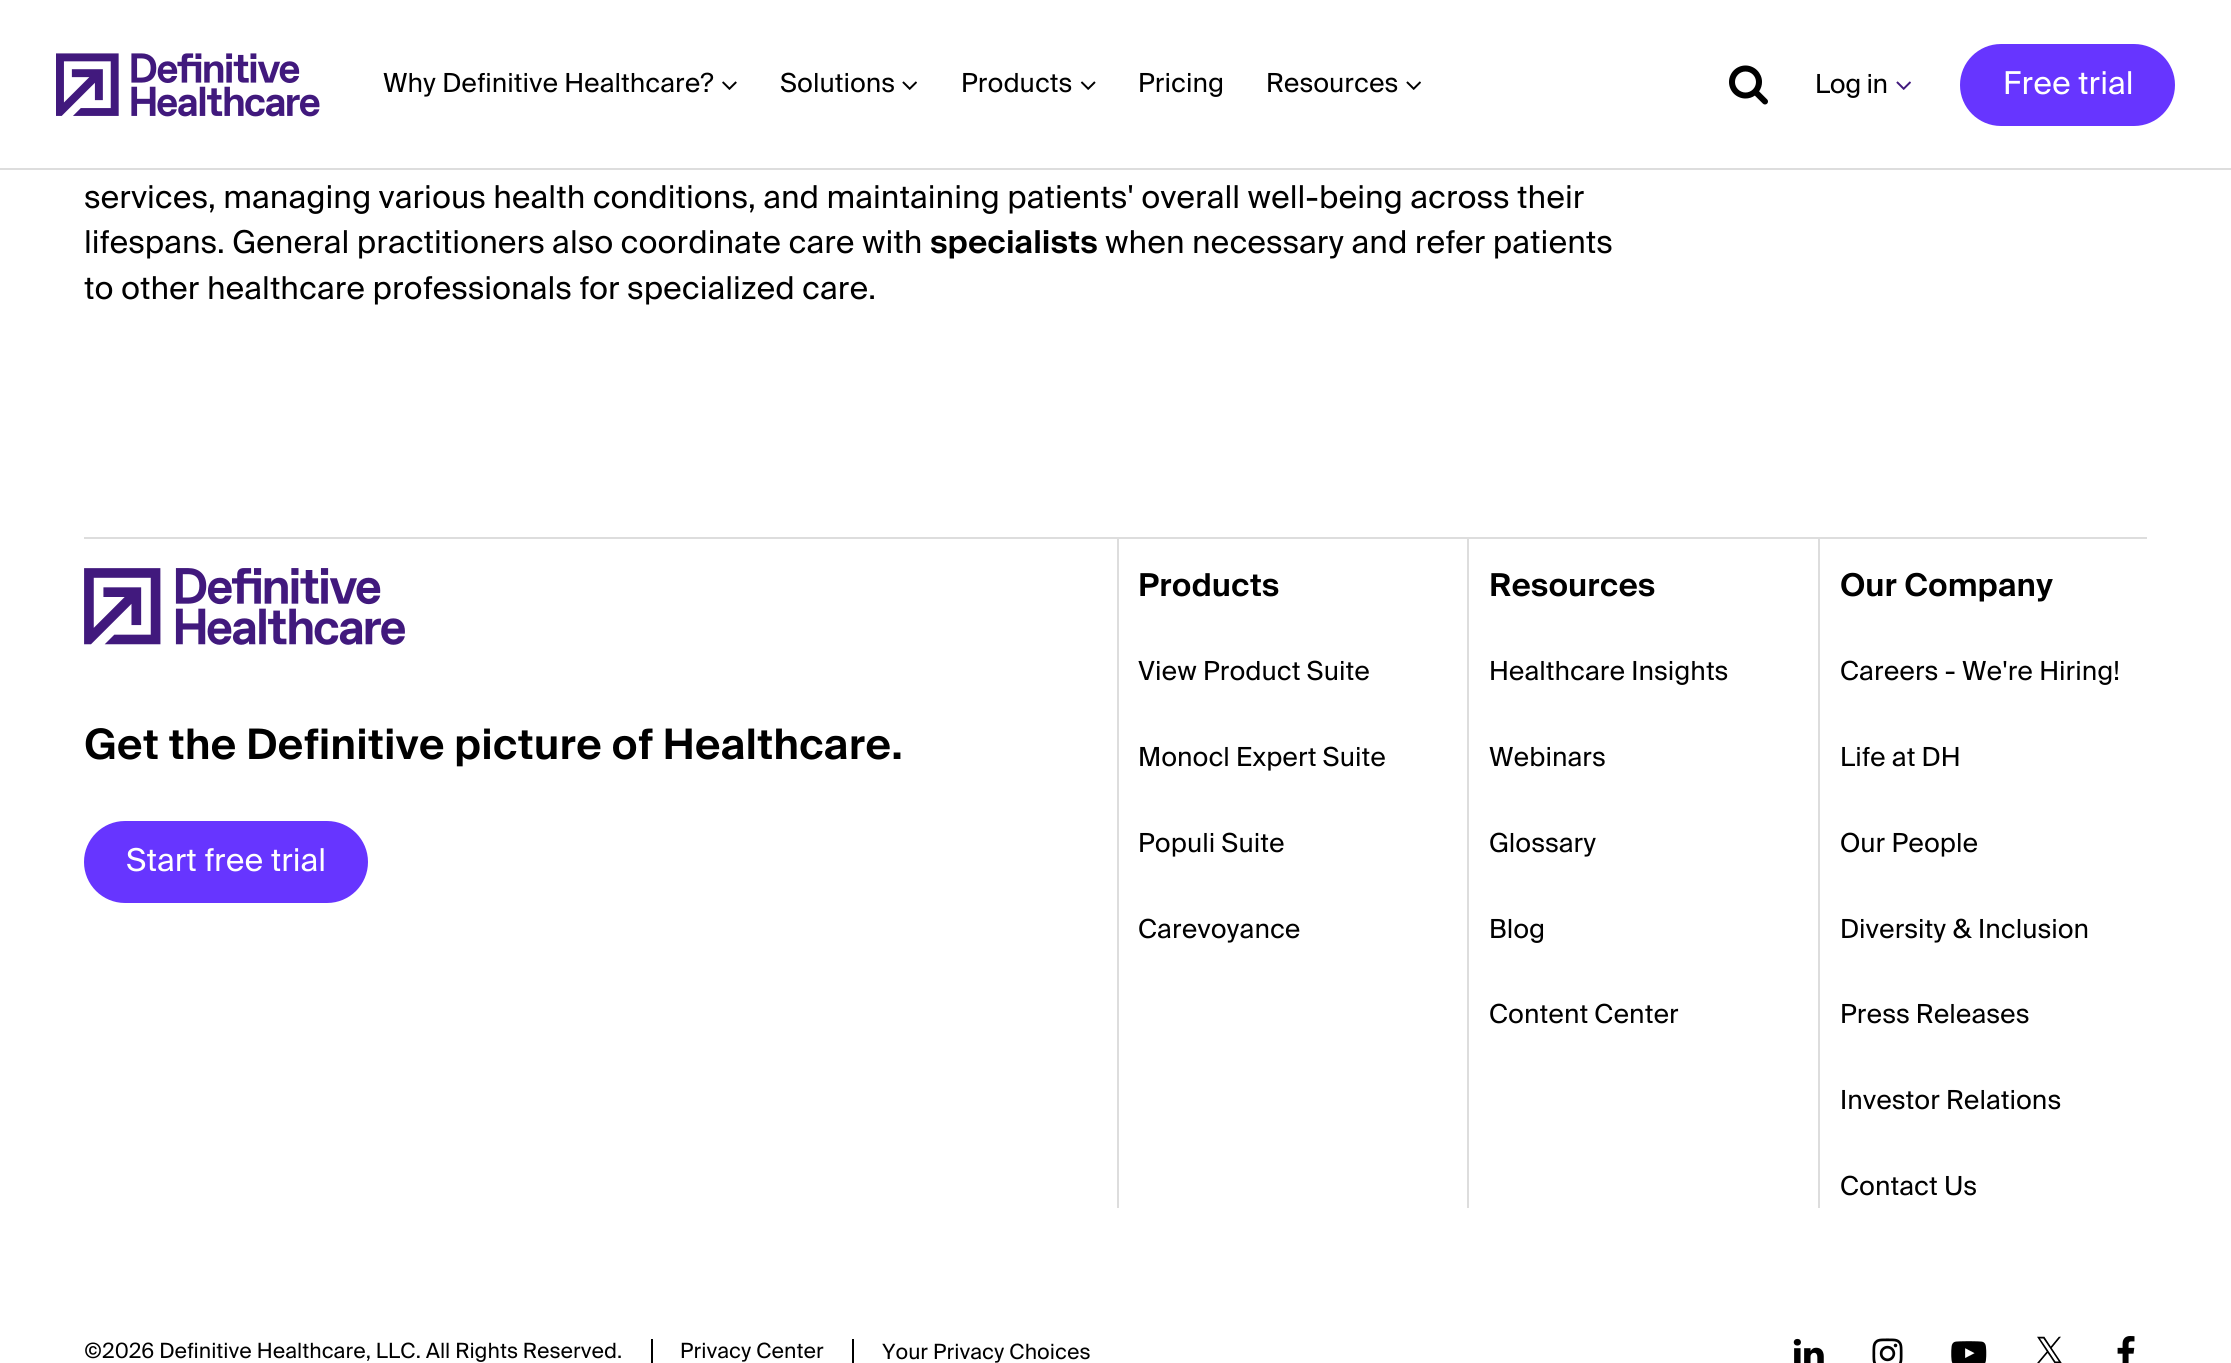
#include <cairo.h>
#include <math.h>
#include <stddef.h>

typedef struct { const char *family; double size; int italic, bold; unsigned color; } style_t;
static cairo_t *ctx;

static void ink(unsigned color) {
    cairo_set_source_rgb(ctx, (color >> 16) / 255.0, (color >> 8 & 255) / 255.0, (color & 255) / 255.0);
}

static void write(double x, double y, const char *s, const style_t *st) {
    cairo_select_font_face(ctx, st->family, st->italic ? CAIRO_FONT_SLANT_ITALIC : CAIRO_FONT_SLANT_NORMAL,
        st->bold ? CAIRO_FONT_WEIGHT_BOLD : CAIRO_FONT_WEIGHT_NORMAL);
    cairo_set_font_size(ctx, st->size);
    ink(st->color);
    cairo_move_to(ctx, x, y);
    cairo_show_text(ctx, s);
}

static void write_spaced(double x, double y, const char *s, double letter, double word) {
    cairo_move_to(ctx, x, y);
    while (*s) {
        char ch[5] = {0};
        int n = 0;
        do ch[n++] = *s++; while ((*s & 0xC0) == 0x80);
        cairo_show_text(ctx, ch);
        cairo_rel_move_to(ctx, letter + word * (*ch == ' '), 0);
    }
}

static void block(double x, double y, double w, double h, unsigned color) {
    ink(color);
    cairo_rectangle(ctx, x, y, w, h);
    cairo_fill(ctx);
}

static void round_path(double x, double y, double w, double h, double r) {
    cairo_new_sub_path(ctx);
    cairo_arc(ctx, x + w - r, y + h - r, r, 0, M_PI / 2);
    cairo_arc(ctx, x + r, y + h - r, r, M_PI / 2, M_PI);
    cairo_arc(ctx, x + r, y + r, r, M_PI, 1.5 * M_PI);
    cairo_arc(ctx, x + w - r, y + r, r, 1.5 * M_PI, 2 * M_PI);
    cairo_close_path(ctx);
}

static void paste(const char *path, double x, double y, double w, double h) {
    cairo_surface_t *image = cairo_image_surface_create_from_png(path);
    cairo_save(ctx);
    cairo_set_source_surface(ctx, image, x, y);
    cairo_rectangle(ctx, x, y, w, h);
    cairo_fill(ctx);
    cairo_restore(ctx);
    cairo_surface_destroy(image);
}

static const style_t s1 = {"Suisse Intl", 26.25, 0, 0, 0x000000};
static const style_t s2 = {"Suisse Intl", 31.5, 0, 0, 0xffffff};
static const style_t s3 = {"Suisse Intl", 31.5, 0, 0, 0x000000};
static const style_t s4 = {"Suisse Intl SemiBold", 31.5, 0, 0, 0x000000};
static const style_t s5 = {"Suisse Intl SemiBold", 42, 0, 0, 0x000000};
static const style_t s6 = {"Suisse Intl", 21, 0, 0, 0x000000};

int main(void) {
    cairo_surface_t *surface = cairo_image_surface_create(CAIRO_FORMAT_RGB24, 2231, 1363);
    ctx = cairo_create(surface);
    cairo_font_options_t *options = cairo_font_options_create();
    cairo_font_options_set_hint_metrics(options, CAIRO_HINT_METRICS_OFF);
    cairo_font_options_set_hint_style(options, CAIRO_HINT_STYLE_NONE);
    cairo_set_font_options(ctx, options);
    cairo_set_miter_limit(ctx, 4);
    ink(0xffffff);
    cairo_paint(ctx);
    block(0, 168, 2231, 2, 0xdddddd);
    paste("pic1.png", 56, 53, 264, 64);
    write(383, 92, "Why Definitive Healthcare?", &s1);
    paste("pic2.png", 722, 81, 15, 9);
    write(780, 92, "Solutions", &s1);
    paste("pic3.png", 902, 81, 15, 9);
    write(961, 92, "Products", &s1);
    paste("pic4.png", 1080, 81, 16, 9);
    write(1138, 92, "Pricing", &s1);
    write(1266, 92, "Resources", &s1);
    paste("pic3.png", 1406, 81, 15, 9);
    paste("pic5.png", 1729, 65, 39, 40);
    write_spaced(1815, 93, "Log in", -0.5, 0);
    paste("pic6.png", 1896, 81, 15, 9);
    ink(0x6735ff);
    round_path(1960, 44, 215, 82, 41);
    cairo_fill(ctx);
    write(2003, 94, "Free trial", &s2);
    write(84, 208, "services, managing various health conditions, and maintaining patients' overall well-being across their", &s3);
    write(84, 253, "lifespans. General practitioners also coordinate care with", &s3);
    write(930, 253, "specialists", &s4);
    write(1105, 253, "when necessary and refer patients", &s3);
    write(84, 299, "to other healthcare professionals for specialized care.", &s3);
    block(84, 537, 2063, 2, 0xdddddd);
    paste("pic7.png", 84, 568, 321, 77);
    write(84, 759, "Get the Definitive picture of Healthcare.", &s5);
    ink(0x6735ff);
    round_path(84, 821, 284, 82, 41);
    cairo_fill(ctx);
    write(126, 871, "Start free trial", &s2);
    block(1117, 539, 2, 669, 0xdddddd);
    write(1138, 596, "Products", &s4);
    write(1138, 680, "View Product Suite", &s1);
    write(1138, 766, "Monocl Expert Suite", &s1);
    write(1138, 852, "Populi Suite", &s1);
    write(1138, 938, "Carevoyance", &s1);
    block(1467, 539, 2, 669, 0xdddddd);
    write(1489, 596, "Resources", &s4);
    write(1489, 680, "Healthcare Insights", &s1);
    write(1489, 766, "Webinars", &s1);
    write(1489, 852, "Glossary", &s1);
    write(1489, 938, "Blog", &s1);
    write(1489, 1023, "Content Center", &s1);
    block(1818, 539, 2, 669, 0xdddddd);
    write(1840, 596, "Our Company", &s4);
    write(1840, 680, "Careers - We're Hiring!", &s1);
    write(1840, 766, "Life at DH", &s1);
    write(1840, 852, "Our People", &s1);
    write(1840, 938, "Diversity & Inclusion", &s1);
    write(1840, 1023, "Press Releases", &s1);
    write(1840, 1109, "Investor Relations", &s1);
    write(1840, 1195, "Contact Us", &s1);
    write(84, 1358, "©2026 Definitive Healthcare, LLC. All Rights Reserved.", &s6);
    block(651, 1339, 2, 24, 0x000000);
    write(680, 1358, "Privacy Center", &s6);
    block(852, 1339, 2, 24, 0x000000);
    write(882, 1359, "Your Privacy Choices", &s6);
    paste("pic8.png", 1793, 1338, 31, 25);
    paste("pic9.png", 1872, 1338, 31, 25);
    paste("pic10.png", 1951, 1341, 36, 22);
    paste("pic11.png", 2037, 1336, 25, 27);
    paste("pic12.png", 2117, 1336, 18, 27);
    cairo_surface_write_to_png(surface, "screenshot.png");
    cairo_font_options_destroy(options);
    cairo_destroy(ctx);
    cairo_surface_destroy(surface);
    return 0;
}
